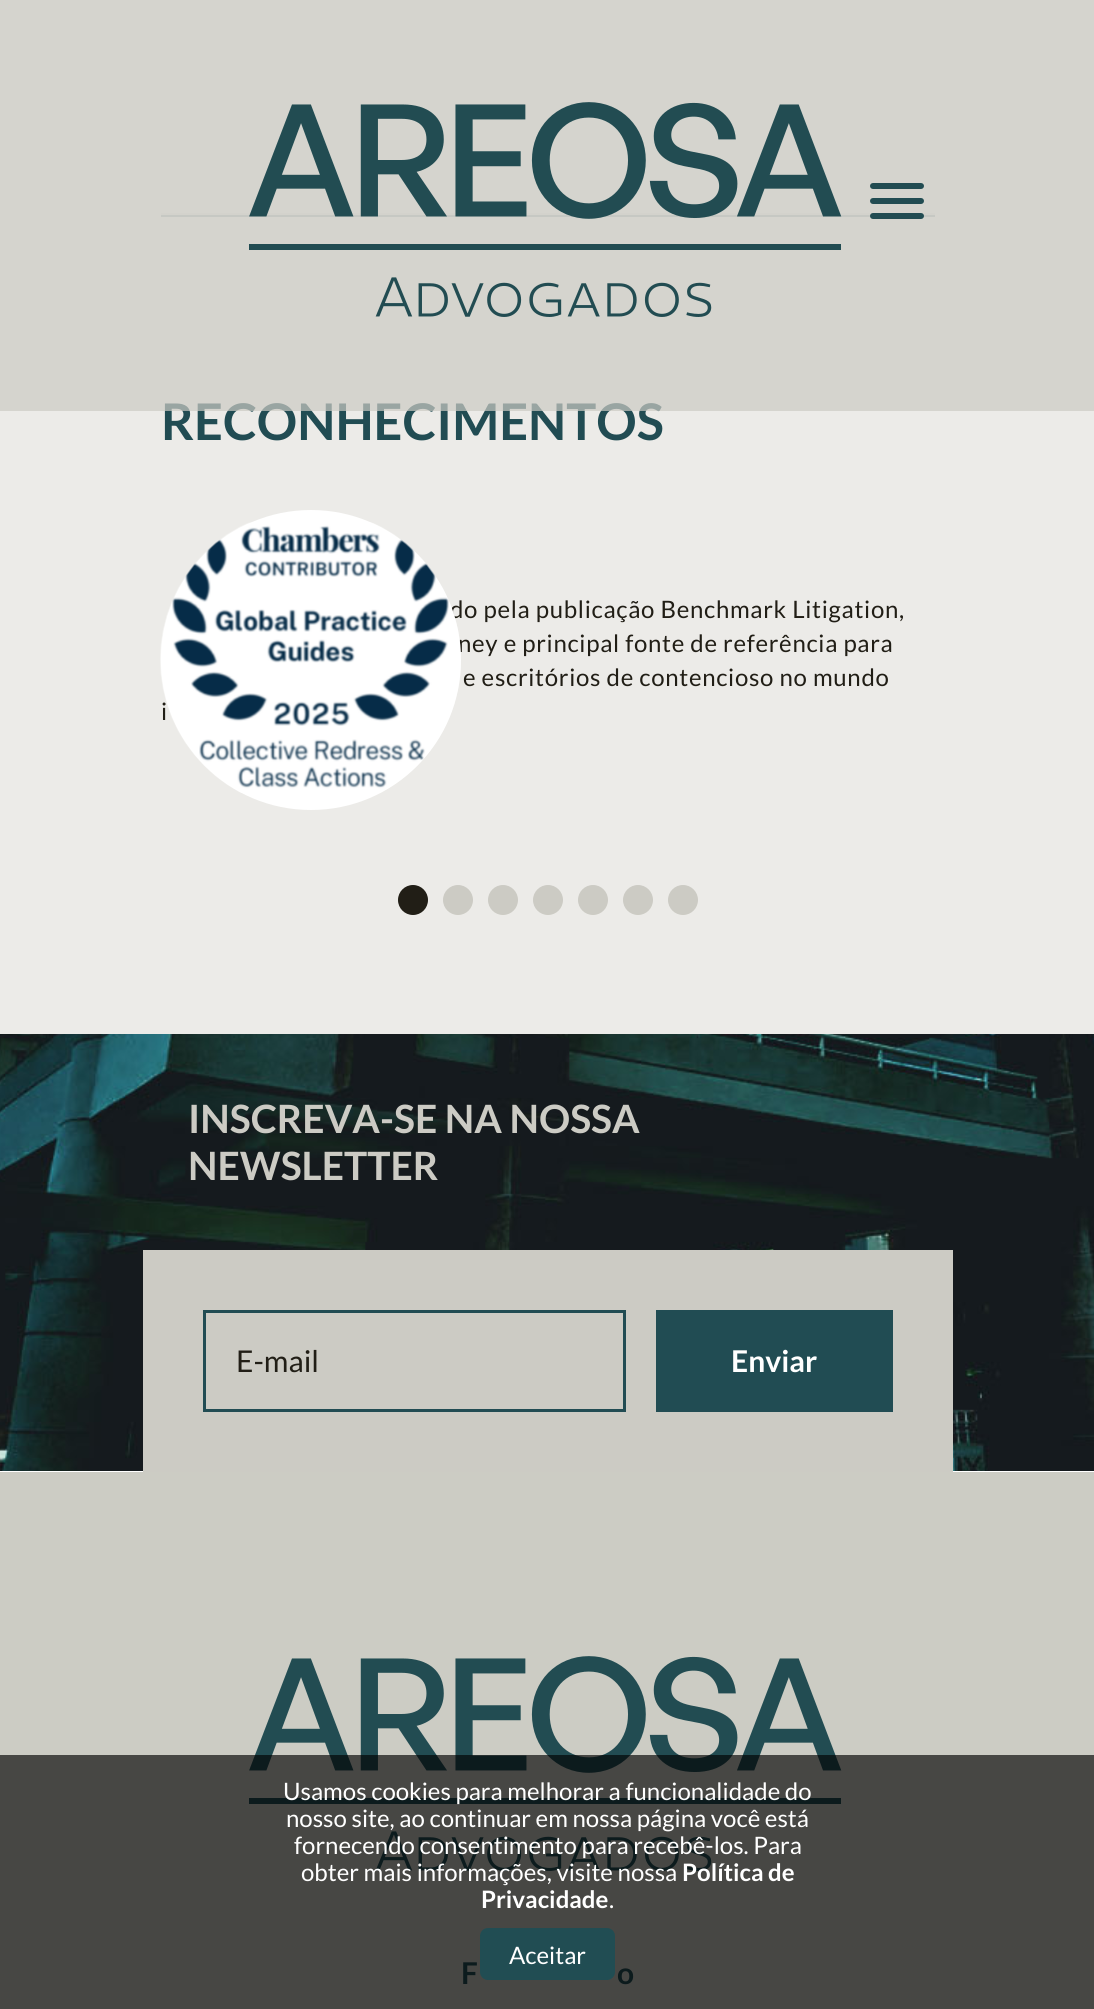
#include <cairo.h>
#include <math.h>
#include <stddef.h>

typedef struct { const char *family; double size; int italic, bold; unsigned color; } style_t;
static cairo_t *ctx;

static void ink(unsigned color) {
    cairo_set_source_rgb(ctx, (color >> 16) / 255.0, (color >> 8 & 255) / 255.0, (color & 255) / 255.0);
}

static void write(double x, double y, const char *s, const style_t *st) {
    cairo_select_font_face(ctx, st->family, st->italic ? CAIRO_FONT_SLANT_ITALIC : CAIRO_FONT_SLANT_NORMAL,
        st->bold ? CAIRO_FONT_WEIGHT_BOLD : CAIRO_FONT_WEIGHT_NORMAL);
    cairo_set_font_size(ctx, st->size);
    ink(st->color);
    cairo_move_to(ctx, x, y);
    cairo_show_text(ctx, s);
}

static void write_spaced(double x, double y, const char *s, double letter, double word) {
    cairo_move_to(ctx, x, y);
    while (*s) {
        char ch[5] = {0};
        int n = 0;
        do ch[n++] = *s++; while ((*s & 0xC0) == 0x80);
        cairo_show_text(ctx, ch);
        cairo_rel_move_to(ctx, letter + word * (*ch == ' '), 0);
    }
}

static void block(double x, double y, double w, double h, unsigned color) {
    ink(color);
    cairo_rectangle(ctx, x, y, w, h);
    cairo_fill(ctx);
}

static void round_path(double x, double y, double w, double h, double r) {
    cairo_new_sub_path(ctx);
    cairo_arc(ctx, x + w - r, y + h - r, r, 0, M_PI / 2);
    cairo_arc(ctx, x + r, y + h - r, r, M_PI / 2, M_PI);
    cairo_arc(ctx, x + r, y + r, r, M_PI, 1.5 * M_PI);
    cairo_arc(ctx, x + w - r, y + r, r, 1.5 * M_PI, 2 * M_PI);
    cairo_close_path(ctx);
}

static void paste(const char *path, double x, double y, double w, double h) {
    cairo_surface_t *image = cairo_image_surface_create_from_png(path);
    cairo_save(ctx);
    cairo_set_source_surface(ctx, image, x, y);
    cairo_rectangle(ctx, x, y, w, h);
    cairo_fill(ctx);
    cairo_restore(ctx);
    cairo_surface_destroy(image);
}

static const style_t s1 = {"Lato", 50.5, 0, 1, 0x214c53};
static const style_t s2 = {"Lato", 39, 0, 1, 0xcccbc4};
static const style_t s3 = {"Lato", 30, 0, 0, 0x211e16};
static const style_t s4 = {"Lato", 30, 0, 1, 0xffffff};
static const style_t s5 = {"Lato", 30, 0, 1, 0x214c53};
static const style_t s6 = {"Lato", 24, 0, 0, 0xffffff};
static const style_t s7 = {"Lato", 24, 0, 1, 0xffffff};

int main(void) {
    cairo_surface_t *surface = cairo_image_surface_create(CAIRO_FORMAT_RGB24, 1094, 2009);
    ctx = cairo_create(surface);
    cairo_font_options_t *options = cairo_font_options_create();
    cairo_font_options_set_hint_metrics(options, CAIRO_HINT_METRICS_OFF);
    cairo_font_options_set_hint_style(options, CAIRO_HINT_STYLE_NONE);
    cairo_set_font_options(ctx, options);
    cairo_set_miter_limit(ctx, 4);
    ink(0xffffff);
    cairo_paint(ctx);
    block(0, 0, 1094, 1034, 0xecebe8);
    block(161, 213, 774, 2, 0xe4e3e1);
    block(161, 215, 774, 2, 0xb9c3c3);
    write(161, 440, "RECONHECIMENTOS", &s1);
    cairo_set_source_rgba(ctx, 0.8, 0.796, 0.769, 0.7);
    cairo_rectangle(ctx, 0, 0, 1094, 411);
    cairo_fill(ctx);
    paste("pic1.png", 249, 102, 593, 215);
    ink(0x224c52);
    round_path(870, 183, 54, 6, 3);
    cairo_fill(ctx);
    round_path(870, 198, 54, 6, 3);
    cairo_fill(ctx);
    round_path(870, 213, 54, 6, 3);
    cairo_fill(ctx);
    cairo_select_font_face(ctx, "Lato", CAIRO_FONT_SLANT_NORMAL, CAIRO_FONT_WEIGHT_NORMAL);
    cairo_set_font_size(ctx, 24);
    ink(0x211e16);
    write_spaced(450, 618, "do pela publicação Benchmark Litigation,", 0.7, 0);
    write_spaced(458, 652, "ney e principal fonte de referência para", 0.7, 0);
    write_spaced(161, 720, "i", 0.7, 0);
    ink(0xffffff);
    cairo_new_path(ctx);
    cairo_arc(ctx, 311, 660, 150, 0, 2 * M_PI);
    cairo_fill(ctx);
    paste("pic2.png", 160, 522, 301, 271);
    ink(0x211e16);
    write_spaced(463, 686, "e escritórios de contencioso no mundo", 0.7, 0);
    cairo_new_path(ctx);
    cairo_arc(ctx, 413, 900, 15, 0, 2 * M_PI);
    cairo_fill(ctx);
    ink(0xcccbc4);
    cairo_arc(ctx, 458, 900, 15, 0, 2 * M_PI);
    cairo_fill(ctx);
    cairo_arc(ctx, 503, 900, 15, 0, 2 * M_PI);
    cairo_fill(ctx);
    cairo_arc(ctx, 548, 900, 15, 0, 2 * M_PI);
    cairo_fill(ctx);
    cairo_arc(ctx, 593, 900, 15, 0, 2 * M_PI);
    cairo_fill(ctx);
    cairo_arc(ctx, 638, 900, 15, 0, 2 * M_PI);
    cairo_fill(ctx);
    cairo_arc(ctx, 683, 900, 15, 0, 2 * M_PI);
    cairo_fill(ctx);
    paste("pic3.png", 0, 1034, 1094, 437);
    write(188, 1133, "INSCREVA-SE NA NOSSA", &s2);
    write(188, 1180, "NEWSLETTER", &s2);
    block(143, 1250, 810, 222, 0xcccbc4);
    cairo_rectangle(ctx, 204.5, 1311.5, 420, 99);
    ink(0x214c53);
    cairo_set_line_width(ctx, 3);
    cairo_stroke(ctx);
    write(236, 1372, "E-mail", &s3);
    block(656, 1310, 237, 102, 0x214c53);
    write(731, 1372, "Enviar", &s4);
    block(0, 1472, 1094, 537, 0xccccc4);
    paste("pic4.png", 249, 1656, 593, 215);
    write(461, 1984, "F", &s5);
    write(617, 1984, "o", &s5);
    cairo_set_source_rgba(ctx, 0, 0, 0, 0.65);
    cairo_rectangle(ctx, 0, 1755, 1094, 254);
    cairo_fill(ctx);
    write(283, 1800, "Usamos cookies para melhorar a funcionalidade do", &s6);
    write(286, 1827, "nosso site, ao continuar em nossa página você está", &s6);
    write(294, 1854, "fornecendo consentimento para recebê-los. Para", &s6);
    write(301, 1881, "obter mais informações, visite nossa", &s6);
    write(682, 1881, "Política de", &s7);
    write(481, 1908, "Privacidade", &s7);
    write(609, 1908, ".", &s6);
    ink(0x214d53);
    round_path(480, 1928, 135, 52, 8);
    cairo_fill(ctx);
    write(509, 1964, "Aceitar", &s6);
    cairo_surface_write_to_png(surface, "screenshot.png");
    cairo_font_options_destroy(options);
    cairo_destroy(ctx);
    cairo_surface_destroy(surface);
    return 0;
}
